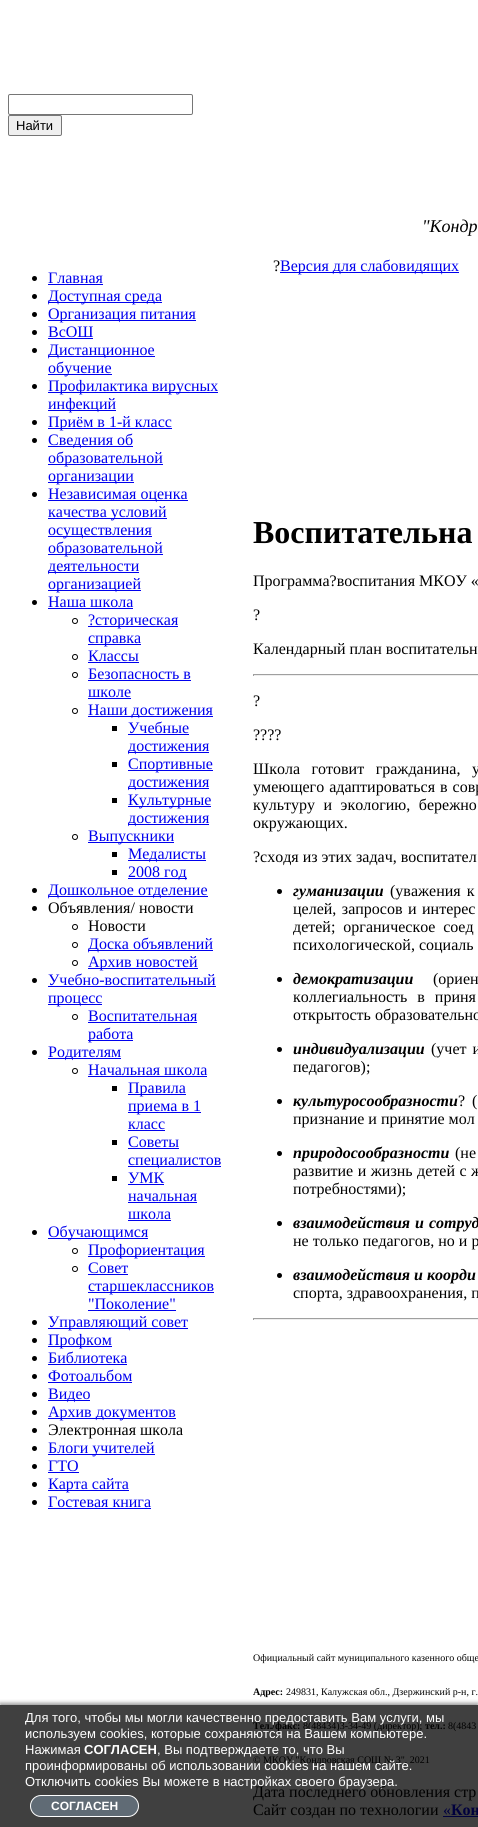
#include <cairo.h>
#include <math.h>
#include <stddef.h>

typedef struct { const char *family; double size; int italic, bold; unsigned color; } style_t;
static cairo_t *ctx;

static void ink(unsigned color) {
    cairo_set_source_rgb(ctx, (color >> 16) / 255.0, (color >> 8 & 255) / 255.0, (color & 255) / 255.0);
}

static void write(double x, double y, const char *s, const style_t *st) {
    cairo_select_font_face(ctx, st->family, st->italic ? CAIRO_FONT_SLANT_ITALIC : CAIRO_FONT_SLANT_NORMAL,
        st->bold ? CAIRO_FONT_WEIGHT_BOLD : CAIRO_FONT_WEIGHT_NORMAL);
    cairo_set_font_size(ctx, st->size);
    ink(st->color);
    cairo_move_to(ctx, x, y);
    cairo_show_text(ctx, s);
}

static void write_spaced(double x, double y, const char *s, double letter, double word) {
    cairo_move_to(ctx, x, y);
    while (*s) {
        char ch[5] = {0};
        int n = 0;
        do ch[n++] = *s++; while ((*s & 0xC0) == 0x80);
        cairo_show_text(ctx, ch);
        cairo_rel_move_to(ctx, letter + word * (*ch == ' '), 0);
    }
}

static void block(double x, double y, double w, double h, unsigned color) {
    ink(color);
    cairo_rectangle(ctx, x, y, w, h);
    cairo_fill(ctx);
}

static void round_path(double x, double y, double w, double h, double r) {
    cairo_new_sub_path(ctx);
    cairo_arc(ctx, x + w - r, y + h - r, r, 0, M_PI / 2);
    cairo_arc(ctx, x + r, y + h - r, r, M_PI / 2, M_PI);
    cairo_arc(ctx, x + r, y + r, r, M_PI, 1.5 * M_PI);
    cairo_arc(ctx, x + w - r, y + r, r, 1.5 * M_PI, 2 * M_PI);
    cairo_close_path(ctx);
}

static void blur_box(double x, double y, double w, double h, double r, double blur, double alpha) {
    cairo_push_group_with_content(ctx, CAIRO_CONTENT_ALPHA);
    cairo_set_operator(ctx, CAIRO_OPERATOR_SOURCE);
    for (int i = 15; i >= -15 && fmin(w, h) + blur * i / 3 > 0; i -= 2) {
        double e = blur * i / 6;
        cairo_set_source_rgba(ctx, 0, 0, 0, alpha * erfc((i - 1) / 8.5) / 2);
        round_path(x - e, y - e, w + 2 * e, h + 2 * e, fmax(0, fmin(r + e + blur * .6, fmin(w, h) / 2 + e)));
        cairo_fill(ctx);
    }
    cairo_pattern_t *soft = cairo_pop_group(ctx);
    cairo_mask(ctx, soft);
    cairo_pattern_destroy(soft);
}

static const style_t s1 = {"Liberation Sans", 13, 0, 0, 0x000000};
static const style_t s2 = {"Liberation Serif", 18, 1, 0, 0x000000};
static const style_t s3 = {"Liberation Serif", 16, 0, 0, 0x000000};
static const style_t s4 = {"Liberation Serif", 16, 0, 0, 0x0000ee};
static const style_t s5 = {"Liberation Serif", 32, 0, 1, 0x000000};
static const style_t s6 = {"Liberation Serif", 16, 1, 1, 0x000000};
static const style_t s7 = {"Liberation Serif", 10, 0, 0, 0x000000};
static const style_t s8 = {"Liberation Serif", 10, 0, 1, 0x000000};
static const style_t s9 = {"Liberation Sans", 13, 0, 0, 0xffffff};
static const style_t s10 = {"Liberation Sans", 13, 0, 1, 0xffffff};
static const style_t s11 = {"Liberation Sans", 12, 0, 1, 0xffffff};
static const style_t s12 = {"Liberation Serif", 16, 0, 0, 0x00003c};
static const style_t s13 = {"Liberation Serif", 16, 0, 1, 0x00003c};

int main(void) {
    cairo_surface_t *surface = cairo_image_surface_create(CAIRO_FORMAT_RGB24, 478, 1827);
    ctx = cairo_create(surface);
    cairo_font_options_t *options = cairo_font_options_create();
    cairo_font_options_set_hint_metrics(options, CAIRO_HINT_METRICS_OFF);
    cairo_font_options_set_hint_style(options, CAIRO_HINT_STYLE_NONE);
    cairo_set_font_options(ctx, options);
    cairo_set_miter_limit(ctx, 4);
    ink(0xffffff);
    cairo_paint(ctx);
    block(0, 1705, 478, 122, 0x404040);
    round_path(8.5, 94.5, 184, 20, 1.5);
    ink(0x767676);
    cairo_set_line_width(ctx, 1);
    cairo_stroke(ctx);
    ink(0xefefef);
    round_path(8.5, 115.5, 53, 20, 1.5);
    cairo_fill_preserve(ctx);
    ink(0x767676);
    cairo_stroke(ctx);
    write(16, 130, "Найти", &s1);
    write(422, 232, "\"Кондр", &s2);
    write(273, 271, "?", &s3);
    block(280, 272, 179, 1, 0x0000ee);
    write(280, 271, "Версия для слабовидящих", &s4);
    ink(0x000000);
    cairo_new_path(ctx);
    cairo_arc(ctx, 34.5, 278.5, 2.5, 0, 2 * M_PI);
    cairo_fill(ctx);
    write(48, 283, "Главная", &s4);
    block(48, 284, 55, 1, 0x0000ee);
    ink(0x000000);
    cairo_new_path(ctx);
    cairo_arc(ctx, 34.5, 296.5, 2.5, 0, 2 * M_PI);
    cairo_fill(ctx);
    block(48, 302, 114, 1, 0x0000ee);
    write(48, 301, "Доступная среда", &s4);
    ink(0x000000);
    cairo_new_path(ctx);
    cairo_arc(ctx, 34.5, 314.5, 2.5, 0, 2 * M_PI);
    cairo_fill(ctx);
    block(48, 320, 148, 1, 0x0000ee);
    write(48, 319, "Организация питания", &s4);
    ink(0x000000);
    cairo_new_path(ctx);
    cairo_arc(ctx, 34.5, 332.5, 2.5, 0, 2 * M_PI);
    cairo_fill(ctx);
    write(48, 337, "ВсОШ", &s4);
    block(48, 338, 45, 1, 0x0000ee);
    ink(0x000000);
    cairo_new_path(ctx);
    cairo_arc(ctx, 34.5, 350.5, 2.5, 0, 2 * M_PI);
    cairo_fill(ctx);
    block(48, 356, 107, 1, 0x0000ee);
    write(48, 355, "Дистанционное", &s4);
    block(48, 374, 64, 1, 0x0000ee);
    write(48, 373, "обучение", &s4);
    ink(0x000000);
    cairo_new_path(ctx);
    cairo_arc(ctx, 34.5, 386.5, 2.5, 0, 2 * M_PI);
    cairo_fill(ctx);
    block(48, 392, 170, 1, 0x0000ee);
    write(48, 391, "Профилактика вирусных", &s4);
    block(48, 410, 68, 1, 0x0000ee);
    write(48, 409, "инфекций", &s4);
    ink(0x000000);
    cairo_new_path(ctx);
    cairo_arc(ctx, 34.5, 422.5, 2.5, 0, 2 * M_PI);
    cairo_fill(ctx);
    block(48, 428, 124, 1, 0x0000ee);
    write(48, 427, "Приём в 1-й класс", &s4);
    ink(0x000000);
    cairo_new_path(ctx);
    cairo_arc(ctx, 34.5, 440.5, 2.5, 0, 2 * M_PI);
    cairo_fill(ctx);
    block(48, 446, 85, 1, 0x0000ee);
    write(48, 445, "Сведения об", &s4);
    block(48, 464, 115, 1, 0x0000ee);
    write(48, 463, "образовательной", &s4);
    block(48, 482, 86, 1, 0x0000ee);
    write(48, 481, "организации", &s4);
    ink(0x000000);
    cairo_new_path(ctx);
    cairo_arc(ctx, 34.5, 494.5, 2.5, 0, 2 * M_PI);
    cairo_fill(ctx);
    block(48, 500, 140, 1, 0x0000ee);
    write(48, 499, "Независимая оценка", &s4);
    block(48, 518, 119, 1, 0x0000ee);
    write(48, 517, "качества условий", &s4);
    block(48, 536, 104, 1, 0x0000ee);
    write(48, 535, "осуществления", &s4);
    block(48, 554, 115, 1, 0x0000ee);
    write(48, 553, "образовательной", &s4);
    block(48, 572, 91, 1, 0x0000ee);
    write(48, 571, "деятельности", &s4);
    block(48, 590, 93, 1, 0x0000ee);
    write(48, 589, "организацией", &s4);
    ink(0x000000);
    cairo_new_path(ctx);
    cairo_arc(ctx, 34.5, 602.5, 2.5, 0, 2 * M_PI);
    cairo_fill(ctx);
    write(48, 607, "Наша школа", &s4);
    block(48, 608, 85, 1, 0x0000ee);
    cairo_new_path(ctx);
    cairo_arc(ctx, 75, 621, 2.5, 0, 2 * M_PI);
    ink(0x000000);
    cairo_stroke(ctx);
    block(88, 626, 90, 1, 0x0000ee);
    write(88, 625, "?сторическая", &s4);
    block(88, 644, 53, 1, 0x0000ee);
    write(88, 643, "справка", &s4);
    cairo_new_path(ctx);
    cairo_arc(ctx, 75, 657, 2.5, 0, 2 * M_PI);
    ink(0x000000);
    cairo_stroke(ctx);
    write(88, 661, "Классы", &s4);
    block(88, 662, 51, 1, 0x0000ee);
    cairo_new_path(ctx);
    cairo_arc(ctx, 75, 675, 2.5, 0, 2 * M_PI);
    ink(0x000000);
    cairo_stroke(ctx);
    write(88, 679, "Безопасность в", &s4);
    block(88, 680, 103, 1, 0x0000ee);
    write(88, 697, "школе", &s4);
    block(88, 698, 43, 1, 0x0000ee);
    cairo_new_path(ctx);
    cairo_arc(ctx, 75, 711, 2.5, 0, 2 * M_PI);
    ink(0x000000);
    cairo_stroke(ctx);
    block(88, 716, 125, 1, 0x0000ee);
    write(88, 715, "Наши достижения", &s4);
    block(112, 726, 5, 5, 0x000000);
    write(128, 733, "Учебные", &s4);
    block(128, 734, 61, 1, 0x0000ee);
    block(128, 752, 81, 1, 0x0000ee);
    write(128, 751, "достижения", &s4);
    block(112, 762, 5, 5, 0x000000);
    block(128, 770, 85, 1, 0x0000ee);
    write(128, 769, "Спортивные", &s4);
    block(128, 788, 81, 1, 0x0000ee);
    write(128, 787, "достижения", &s4);
    block(112, 798, 5, 5, 0x000000);
    block(128, 806, 83, 1, 0x0000ee);
    write(128, 805, "Культурные", &s4);
    block(128, 824, 81, 1, 0x0000ee);
    write(128, 823, "достижения", &s4);
    cairo_new_path(ctx);
    cairo_arc(ctx, 75, 837, 2.5, 0, 2 * M_PI);
    ink(0x000000);
    cairo_stroke(ctx);
    block(88, 842, 86, 1, 0x0000ee);
    write(88, 841, "Выпускники", &s4);
    block(112, 852, 5, 5, 0x000000);
    block(128, 860, 78, 1, 0x0000ee);
    write(128, 859, "Медалисты", &s4);
    block(112, 870, 5, 5, 0x000000);
    block(128, 878, 59, 1, 0x0000ee);
    write(128, 877, "2008 год", &s4);
    ink(0x000000);
    cairo_new_path(ctx);
    cairo_arc(ctx, 34.5, 890.5, 2.5, 0, 2 * M_PI);
    cairo_fill(ctx);
    block(48, 896, 160, 1, 0x0000ee);
    write(48, 895, "Дошкольное отделение", &s4);
    ink(0x000000);
    cairo_new_path(ctx);
    cairo_arc(ctx, 34.5, 908.5, 2.5, 0, 2 * M_PI);
    cairo_fill(ctx);
    write(48, 913, "Объявления/ новости", &s3);
    cairo_new_path(ctx);
    cairo_arc(ctx, 75, 927, 2.5, 0, 2 * M_PI);
    cairo_stroke(ctx);
    write(88, 931, "Новости", &s3);
    cairo_new_path(ctx);
    cairo_arc(ctx, 75, 945, 2.5, 0, 2 * M_PI);
    cairo_stroke(ctx);
    block(88, 950, 125, 1, 0x0000ee);
    write(88, 949, "Доска объявлений", &s4);
    cairo_new_path(ctx);
    cairo_arc(ctx, 75, 963, 2.5, 0, 2 * M_PI);
    ink(0x000000);
    cairo_stroke(ctx);
    block(88, 968, 110, 1, 0x0000ee);
    write(88, 967, "Архив новостей", &s4);
    ink(0x000000);
    cairo_new_path(ctx);
    cairo_arc(ctx, 34.5, 980.5, 2.5, 0, 2 * M_PI);
    cairo_fill(ctx);
    write(48, 985, "Учебно-воспитательный", &s4);
    block(48, 986, 168, 1, 0x0000ee);
    block(48, 1004, 54, 1, 0x0000ee);
    write(48, 1003, "процесс", &s4);
    cairo_new_path(ctx);
    cairo_arc(ctx, 75, 1017, 2.5, 0, 2 * M_PI);
    ink(0x000000);
    cairo_stroke(ctx);
    write(88, 1021, "Воспитательная", &s4);
    block(88, 1022, 109, 1, 0x0000ee);
    block(88, 1040, 45, 1, 0x0000ee);
    write(88, 1039, "работа", &s4);
    ink(0x000000);
    cairo_new_path(ctx);
    cairo_arc(ctx, 34.5, 1052.5, 2.5, 0, 2 * M_PI);
    cairo_fill(ctx);
    block(48, 1058, 73, 1, 0x0000ee);
    write(48, 1057, "Родителям", &s4);
    cairo_new_path(ctx);
    cairo_arc(ctx, 75, 1071, 2.5, 0, 2 * M_PI);
    ink(0x000000);
    cairo_stroke(ctx);
    write(88, 1075, "Начальная школа", &s4);
    block(88, 1076, 119, 1, 0x0000ee);
    block(112, 1086, 5, 5, 0x000000);
    block(128, 1094, 58, 1, 0x0000ee);
    write(128, 1093, "Правила", &s4);
    block(128, 1112, 73, 1, 0x0000ee);
    write(128, 1111, "приема в 1", &s4);
    write(128, 1129, "класс", &s4);
    block(128, 1130, 37, 1, 0x0000ee);
    block(112, 1140, 5, 5, 0x000000);
    write(128, 1147, "Советы", &s4);
    block(128, 1148, 51, 1, 0x0000ee);
    block(128, 1166, 93, 1, 0x0000ee);
    write(128, 1165, "специалистов", &s4);
    block(112, 1176, 5, 5, 0x000000);
    write(128, 1183, "УМК", &s4);
    block(128, 1184, 36, 1, 0x0000ee);
    write(128, 1201, "начальная", &s4);
    block(128, 1202, 69, 1, 0x0000ee);
    write(128, 1219, "школа", &s4);
    block(128, 1220, 43, 1, 0x0000ee);
    ink(0x000000);
    cairo_new_path(ctx);
    cairo_arc(ctx, 34.5, 1232.5, 2.5, 0, 2 * M_PI);
    cairo_fill(ctx);
    block(48, 1238, 100, 1, 0x0000ee);
    write(48, 1237, "Обучающимся", &s4);
    cairo_new_path(ctx);
    cairo_arc(ctx, 75, 1251, 2.5, 0, 2 * M_PI);
    ink(0x000000);
    cairo_stroke(ctx);
    block(88, 1256, 117, 1, 0x0000ee);
    write(88, 1255, "Профориентация", &s4);
    cairo_new_path(ctx);
    cairo_arc(ctx, 75, 1269, 2.5, 0, 2 * M_PI);
    ink(0x000000);
    cairo_stroke(ctx);
    write(88, 1273, "Совет", &s4);
    block(88, 1274, 40, 1, 0x0000ee);
    block(88, 1292, 126, 1, 0x0000ee);
    write(88, 1291, "старшеклассников", &s4);
    write(88, 1309, "\"Поколение\"", &s4);
    block(88, 1310, 88, 1, 0x0000ee);
    ink(0x000000);
    cairo_new_path(ctx);
    cairo_arc(ctx, 34.5, 1322.5, 2.5, 0, 2 * M_PI);
    cairo_fill(ctx);
    block(48, 1328, 140, 1, 0x0000ee);
    write(48, 1327, "Управляющий совет", &s4);
    ink(0x000000);
    cairo_new_path(ctx);
    cairo_arc(ctx, 34.5, 1340.5, 2.5, 0, 2 * M_PI);
    cairo_fill(ctx);
    block(48, 1346, 64, 1, 0x0000ee);
    write(48, 1345, "Профком", &s4);
    ink(0x000000);
    cairo_new_path(ctx);
    cairo_arc(ctx, 34.5, 1358.5, 2.5, 0, 2 * M_PI);
    cairo_fill(ctx);
    write(48, 1363, "Библиотека", &s4);
    block(48, 1364, 79, 1, 0x0000ee);
    ink(0x000000);
    cairo_new_path(ctx);
    cairo_arc(ctx, 34.5, 1376.5, 2.5, 0, 2 * M_PI);
    cairo_fill(ctx);
    write(48, 1381, "Фотоальбом", &s4);
    block(48, 1382, 84, 1, 0x0000ee);
    ink(0x000000);
    cairo_new_path(ctx);
    cairo_arc(ctx, 34.5, 1394.5, 2.5, 0, 2 * M_PI);
    cairo_fill(ctx);
    block(48, 1400, 42, 1, 0x0000ee);
    write(48, 1399, "Видео", &s4);
    ink(0x000000);
    cairo_new_path(ctx);
    cairo_arc(ctx, 34.5, 1412.5, 2.5, 0, 2 * M_PI);
    cairo_fill(ctx);
    block(48, 1418, 128, 1, 0x0000ee);
    write(48, 1417, "Архив документов", &s4);
    ink(0x000000);
    cairo_new_path(ctx);
    cairo_arc(ctx, 34.5, 1430.5, 2.5, 0, 2 * M_PI);
    cairo_fill(ctx);
    write(48, 1435, "Электронная школа", &s3);
    cairo_new_path(ctx);
    cairo_arc(ctx, 34.5, 1448.5, 2.5, 0, 2 * M_PI);
    cairo_fill(ctx);
    block(48, 1454, 107, 1, 0x0000ee);
    write(48, 1453, "Блоги учителей", &s4);
    ink(0x000000);
    cairo_new_path(ctx);
    cairo_arc(ctx, 34.5, 1466.5, 2.5, 0, 2 * M_PI);
    cairo_fill(ctx);
    write(48, 1471, "ГТО", &s4);
    block(48, 1472, 31, 1, 0x0000ee);
    ink(0x000000);
    cairo_new_path(ctx);
    cairo_arc(ctx, 34.5, 1484.5, 2.5, 0, 2 * M_PI);
    cairo_fill(ctx);
    block(48, 1490, 81, 1, 0x0000ee);
    write(48, 1489, "Карта сайта", &s4);
    ink(0x000000);
    cairo_new_path(ctx);
    cairo_arc(ctx, 34.5, 1502.5, 2.5, 0, 2 * M_PI);
    cairo_fill(ctx);
    write(48, 1507, "Гостевая книга", &s4);
    block(48, 1508, 103, 1, 0x0000ee);
    write(253, 543, "Воспитательна", &s5);
    write(253, 586, "Программа?воспитания МКОУ «", &s3);
    write(253, 620, "?", &s3);
    write(253, 654, "Календарный план воспитательн", &s3);
    block(253, 674, 225, 1, 0x9f9f9f);
    block(253, 675, 225, 1, 0xeeeeee);
    block(253, 674, 1, 2, 0x9f9f9f);
    write(253, 706, "?", &s3);
    write(253, 740, "?\077?\077", &s3);
    write_spaced(253, 774, "Школа готовит гражданина, у", 0, 7.5);
    write_spaced(253, 792, "умеющего адаптироваться в совр", 0, 1);
    write_spaced(253, 810, "культуру и экологию, бережно", 0, 4.5);
    write(253, 828, "окружающих.", &s3);
    write(253, 862, "?сходя из этих задач, воспитател", &s3);
    cairo_new_path(ctx);
    cairo_arc(ctx, 279.5, 891.5, 2.5, 0, 2 * M_PI);
    cairo_fill(ctx);
    write(293, 896, "гуманизации", &s6);
    cairo_select_font_face(ctx, "Liberation Serif", CAIRO_FONT_SLANT_NORMAL, CAIRO_FONT_WEIGHT_NORMAL);
    write_spaced(390, 896, "(уважения к", 0, 2);
    write_spaced(293, 914, "целей, запросов и интерес", 0, 1.5);
    write_spaced(293, 932, "детей; органическое соед", 0, 4);
    write(293, 950, "психологической, социаль", &s3);
    cairo_new_path(ctx);
    cairo_arc(ctx, 279.5, 979.5, 2.5, 0, 2 * M_PI);
    cairo_fill(ctx);
    write(293, 984, "демократизации", &s6);
    cairo_select_font_face(ctx, "Liberation Serif", CAIRO_FONT_SLANT_NORMAL, CAIRO_FONT_WEIGHT_NORMAL);
    write_spaced(433, 984, "(ориен", 0, 16);
    write_spaced(293, 1002, "коллегиальность в приня", 0, 6);
    write(293, 1020, "открытость образовательно", &s3);
    cairo_new_path(ctx);
    cairo_arc(ctx, 279.5, 1049.5, 2.5, 0, 2 * M_PI);
    cairo_fill(ctx);
    write(293, 1054, "индивидуализации", &s6);
    cairo_select_font_face(ctx, "Liberation Serif", CAIRO_FONT_SLANT_NORMAL, CAIRO_FONT_WEIGHT_NORMAL);
    write_spaced(431, 1054, "(учет и", 0, 2);
    write(293, 1072, "педагогов);", &s3);
    cairo_new_path(ctx);
    cairo_arc(ctx, 279.5, 1101.5, 2.5, 0, 2 * M_PI);
    cairo_fill(ctx);
    write(293, 1106, "культуросообразности", &s6);
    write(458, 1106, "?", &s3);
    write_spaced(472, 1106, "(", 0, 3);
    write(293, 1124, "признание и принятие мол", &s3);
    cairo_new_path(ctx);
    cairo_arc(ctx, 279.5, 1153.5, 2.5, 0, 2 * M_PI);
    cairo_fill(ctx);
    write(293, 1158, "природосообразности", &s6);
    cairo_select_font_face(ctx, "Liberation Serif", CAIRO_FONT_SLANT_NORMAL, CAIRO_FONT_WEIGHT_NORMAL);
    write_spaced(455, 1158, "(не", 0, 1);
    write_spaced(293, 1176, "развитие и жизнь детей с ж", 0, 0.5);
    write(293, 1194, "потребностями);", &s3);
    cairo_new_path(ctx);
    cairo_arc(ctx, 279.5, 1223.5, 2.5, 0, 2 * M_PI);
    cairo_fill(ctx);
    cairo_select_font_face(ctx, "Liberation Serif", CAIRO_FONT_SLANT_ITALIC, CAIRO_FONT_WEIGHT_BOLD);
    write_spaced(293, 1228, "взаимодействия и сотруд", 0, 1);
    write(293, 1246, "не только педагогов, но и р", &s3);
    cairo_new_path(ctx);
    cairo_arc(ctx, 279.5, 1275.5, 2.5, 0, 2 * M_PI);
    cairo_fill(ctx);
    write(293, 1280, "взаимодействия и коорди", &s6);
    write(293, 1298, "спорта, здравоохранения, п", &s3);
    block(253, 1318, 225, 1, 0x9f9f9f);
    block(253, 1319, 225, 1, 0xeeeeee);
    block(253, 1318, 1, 2, 0x9f9f9f);
    write(253, 1661, "Официальный сайт муниципального казенного обще", &s7);
    write(253, 1695, "Адрес:", &s8);
    write(286, 1695, "249831, Калужская обл., Дзержинский р-н, г.", &s7);
    write(253, 1729, "Тел./факс:", &s8);
    write(303, 1729, "8(48434)3-34-49 (директор);", &s7);
    write(425, 1729, "тел.:", &s8);
    write(448, 1729, "8(4843", &s7);
    write(253, 1763, "© МКОУ \"Кондровская СОШ № 3\", 2021", &s7);
    block(443, 1816, 35, 1, 0x00003c);
    cairo_save(ctx);
    cairo_rectangle(ctx, 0, 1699, 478, 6);
    cairo_clip(ctx);
    ink(0x999999);
    blur_box(0, 1703, 478, 122, 0, 2, 1);
    cairo_restore(ctx);
    write(25, 1722, "Для того, чтобы мы могли качественно предоставить Вам услуги, мы", &s9);
    write(25, 1738, "используем cookies, которые сохраняются на Вашем компьютере.", &s9);
    write(25, 1754, "Нажимая", &s9);
    write(84, 1754, "СОГЛАСЕН", &s10);
    write(157, 1754, ", Вы подтверждаете то, что Вы", &s9);
    write(25, 1770, "проинформированы об использовании cookies на нашем сайте.", &s9);
    write(25, 1786, "Отключить cookies Вы можете в настройках своего браузера.", &s9);
    ink(0x606b75);
    round_path(30.5, 1795.5, 108, 21, 10.5);
    cairo_fill_preserve(ctx);
    ink(0xffffff);
    cairo_stroke(ctx);
    write(51, 1810, "СОГЛАСЕН", &s11);
    write(253, 1797, "Дата последнего обновления стр", &s3);
    write(253, 1815, "Сайт создан по технологии", &s3);
    write(443, 1815, "«", &s12);
    write(451, 1815, "Кон", &s13);
    cairo_surface_write_to_png(surface, "screenshot.png");
    cairo_font_options_destroy(options);
    cairo_destroy(ctx);
    cairo_surface_destroy(surface);
    return 0;
}
